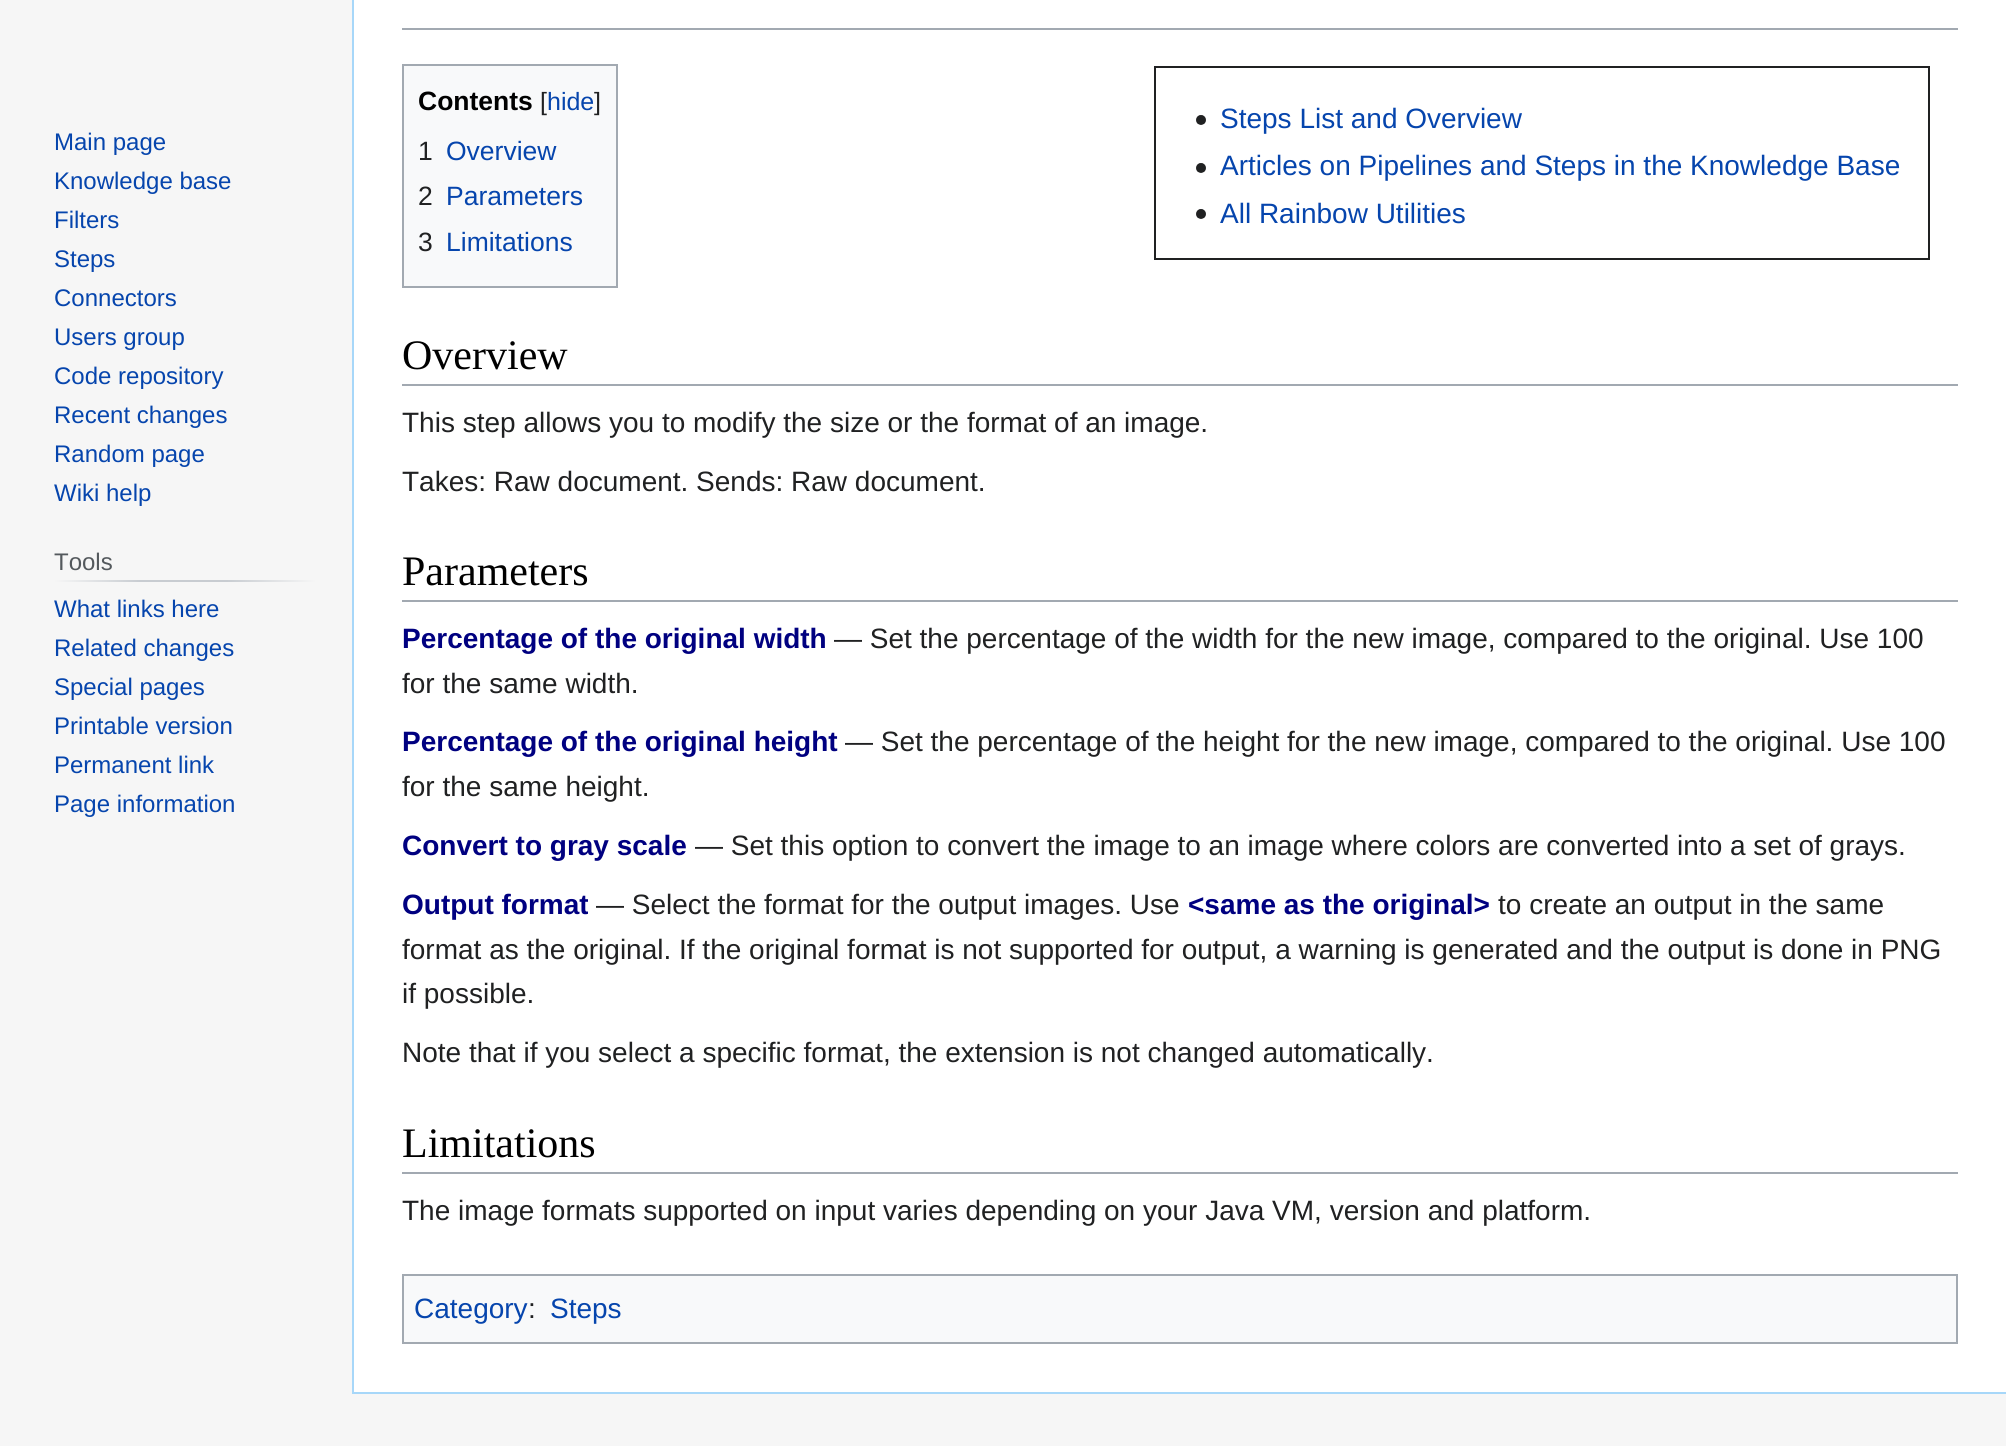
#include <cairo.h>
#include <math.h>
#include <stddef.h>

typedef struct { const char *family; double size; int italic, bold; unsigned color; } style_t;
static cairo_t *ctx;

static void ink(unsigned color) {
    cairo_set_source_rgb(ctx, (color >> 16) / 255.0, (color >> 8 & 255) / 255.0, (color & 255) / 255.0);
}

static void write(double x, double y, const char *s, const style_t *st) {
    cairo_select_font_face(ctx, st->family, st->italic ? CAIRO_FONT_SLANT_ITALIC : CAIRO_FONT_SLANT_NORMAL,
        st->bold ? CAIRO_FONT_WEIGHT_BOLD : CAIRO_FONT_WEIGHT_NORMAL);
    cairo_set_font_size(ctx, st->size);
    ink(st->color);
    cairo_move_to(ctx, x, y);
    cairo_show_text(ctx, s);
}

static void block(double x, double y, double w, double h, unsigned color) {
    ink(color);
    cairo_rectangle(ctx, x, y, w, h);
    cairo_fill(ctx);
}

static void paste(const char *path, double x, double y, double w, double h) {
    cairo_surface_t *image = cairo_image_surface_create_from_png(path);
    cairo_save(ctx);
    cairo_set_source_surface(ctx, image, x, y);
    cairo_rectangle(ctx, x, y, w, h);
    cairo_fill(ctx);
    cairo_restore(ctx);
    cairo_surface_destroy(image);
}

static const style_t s1 = {"Liberation Sans", 24, 0, 0, 0x0645ad};
static const style_t s2 = {"Liberation Sans", 24, 0, 0, 0x54595d};
static const style_t s3 = {"Liberation Sans", 26.5, 0, 1, 0x000000};
static const style_t s4 = {"Liberation Sans", 25, 0, 0, 0x202122};
static const style_t s5 = {"Liberation Sans", 25, 0, 0, 0x0645ad};
static const style_t s6 = {"Liberation Sans", 26.5, 0, 0, 0x202122};
static const style_t s7 = {"Liberation Sans", 26.5, 0, 0, 0x0645ad};
static const style_t s8 = {"Liberation Sans", 28, 0, 0, 0x0645ad};
static const style_t s9 = {"Liberation Serif", 42, 0, 0, 0x000000};
static const style_t s10 = {"Liberation Sans", 28, 0, 0, 0x202122};
static const style_t s11 = {"Liberation Sans", 28, 0, 1, 0x000080};

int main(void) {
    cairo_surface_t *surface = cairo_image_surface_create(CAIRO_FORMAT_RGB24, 2006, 1446);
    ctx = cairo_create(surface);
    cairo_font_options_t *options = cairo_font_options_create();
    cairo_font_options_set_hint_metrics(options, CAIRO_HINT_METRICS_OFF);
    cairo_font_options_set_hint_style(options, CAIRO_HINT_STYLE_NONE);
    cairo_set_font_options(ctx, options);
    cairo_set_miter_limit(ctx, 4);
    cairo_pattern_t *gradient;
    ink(0xf6f6f6);
    cairo_paint(ctx);
    write(54, 150, "Main page", &s1);
    write(54, 189, "Knowledge base", &s1);
    write(54, 228, "Filters", &s1);
    write(54, 267, "Steps", &s1);
    write(54, 306, "Connectors", &s1);
    write(54, 345, "Users group", &s1);
    write(54, 384, "Code repository", &s1);
    write(54, 423, "Recent changes", &s1);
    write(54, 462, "Random page", &s1);
    write(54, 501, "Wiki help", &s1);
    gradient = cairo_pattern_create_linear(54, 581, 316, 581);
    cairo_pattern_add_color_stop_rgba(gradient, 0, 0.965, 0.965, 0.965, 1);
    cairo_pattern_add_color_stop_rgba(gradient, 0.33, 0.784, 0.8, 0.82, 1);
    cairo_pattern_add_color_stop_rgba(gradient, 0.66, 0.784, 0.8, 0.82, 1);
    cairo_pattern_add_color_stop_rgba(gradient, 1, 0.965, 0.965, 0.965, 1);
    cairo_set_source(ctx, gradient);
    cairo_pattern_destroy(gradient);
    cairo_rectangle(ctx, 54, 580, 262, 2);
    cairo_fill(ctx);
    write(54, 570, "Tools", &s2);
    write(54, 617, "What links here", &s1);
    write(54, 656, "Related changes", &s1);
    write(54, 695, "Special pages", &s1);
    write(54, 734, "Printable version", &s1);
    write(54, 773, "Permanent link", &s1);
    write(54, 812, "Page information", &s1);
    block(354, 0, 1652, 1392, 0xffffff);
    block(352, 1392, 1654, 2, 0xa7d7f9);
    block(352, 0, 2, 1394, 0xa7d7f9);
    block(402, 28, 1556, 2, 0xa2a9b1);
    ink(0xf8f9fa);
    cairo_rectangle(ctx, 403, 65, 214, 222);
    cairo_fill_preserve(ctx);
    ink(0xa2a9b1);
    cairo_stroke(ctx);
    write(418, 110, "Contents", &s3);
    write(540, 110, "[", &s4);
    write(547, 110, "hide", &s5);
    write(594, 110, "]", &s4);
    write(418, 160, "1", &s6);
    write(446, 160, "Overview", &s7);
    write(418, 205, "2", &s6);
    write(446, 205, "Parameters", &s7);
    write(418, 251, "3", &s6);
    write(446, 251, "Limitations", &s7);
    cairo_rectangle(ctx, 1155, 67, 774, 192);
    ink(0x202122);
    cairo_stroke(ctx);
    paste("pic1.png", 1196, 115, 10, 10);
    write(1220, 128, "Steps List and Overview", &s8);
    paste("pic1.png", 1196, 163, 10, 10);
    write(1220, 175, "Articles on Pipelines and Steps in the Knowledge Base", &s8);
    paste("pic1.png", 1196, 209, 10, 10);
    write(1220, 223, "All Rainbow Utilities", &s8);
    block(402, 384, 1556, 2, 0xa2a9b1);
    write(402, 369, "Overview", &s9);
    write(402, 432, "This step allows you to modify the size or the format of an image.", &s10);
    write(402, 491, "Takes: Raw document. Sends: Raw document.", &s10);
    block(402, 600, 1556, 2, 0xa2a9b1);
    write(402, 585, "Parameters", &s9);
    write(402, 648, "Percentage of the original width", &s11);
    write(834, 648, "— Set the percentage of the width for the new image, compared to the original. Use 100", &s10);
    write(402, 693, "for the same width.", &s10);
    write(402, 751, "Percentage of the original height", &s11);
    write(845, 751, "— Set the percentage of the height for the new image, compared to the original. Use 100", &s10);
    write(402, 796, "for the same height.", &s10);
    write(402, 855, "Convert to gray scale", &s11);
    write(695, 855, "— Set this option to convert the image to an image where colors are converted into a set of grays.", &s10);
    write(402, 914, "Output format", &s11);
    write(596, 914, "— Select the format for the output images. Use", &s10);
    write(1188, 914, "<same as the original>", &s11);
    write(1498, 914, "to create an output in the same", &s10);
    write(402, 959, "format as the original. If the original format is not supported for output, a warning is generated and the output is done in PNG", &s10);
    write(402, 1003, "if possible.", &s10);
    write(402, 1062, "Note that if you select a specific format, the extension is not changed automatically.", &s10);
    block(402, 1172, 1556, 2, 0xa2a9b1);
    write(402, 1157, "Limitations", &s9);
    write(402, 1220, "The image formats supported on input varies depending on your Java VM, version and platform.", &s10);
    ink(0xf8f9fa);
    cairo_rectangle(ctx, 403, 1275, 1554, 68);
    cairo_fill_preserve(ctx);
    ink(0xa2a9b1);
    cairo_stroke(ctx);
    write(414, 1318, "Category", &s8);
    write(528, 1318, ":", &s10);
    write(550, 1318, "Steps", &s8);
    cairo_surface_write_to_png(surface, "screenshot.png");
    cairo_font_options_destroy(options);
    cairo_destroy(ctx);
    cairo_surface_destroy(surface);
    return 0;
}
